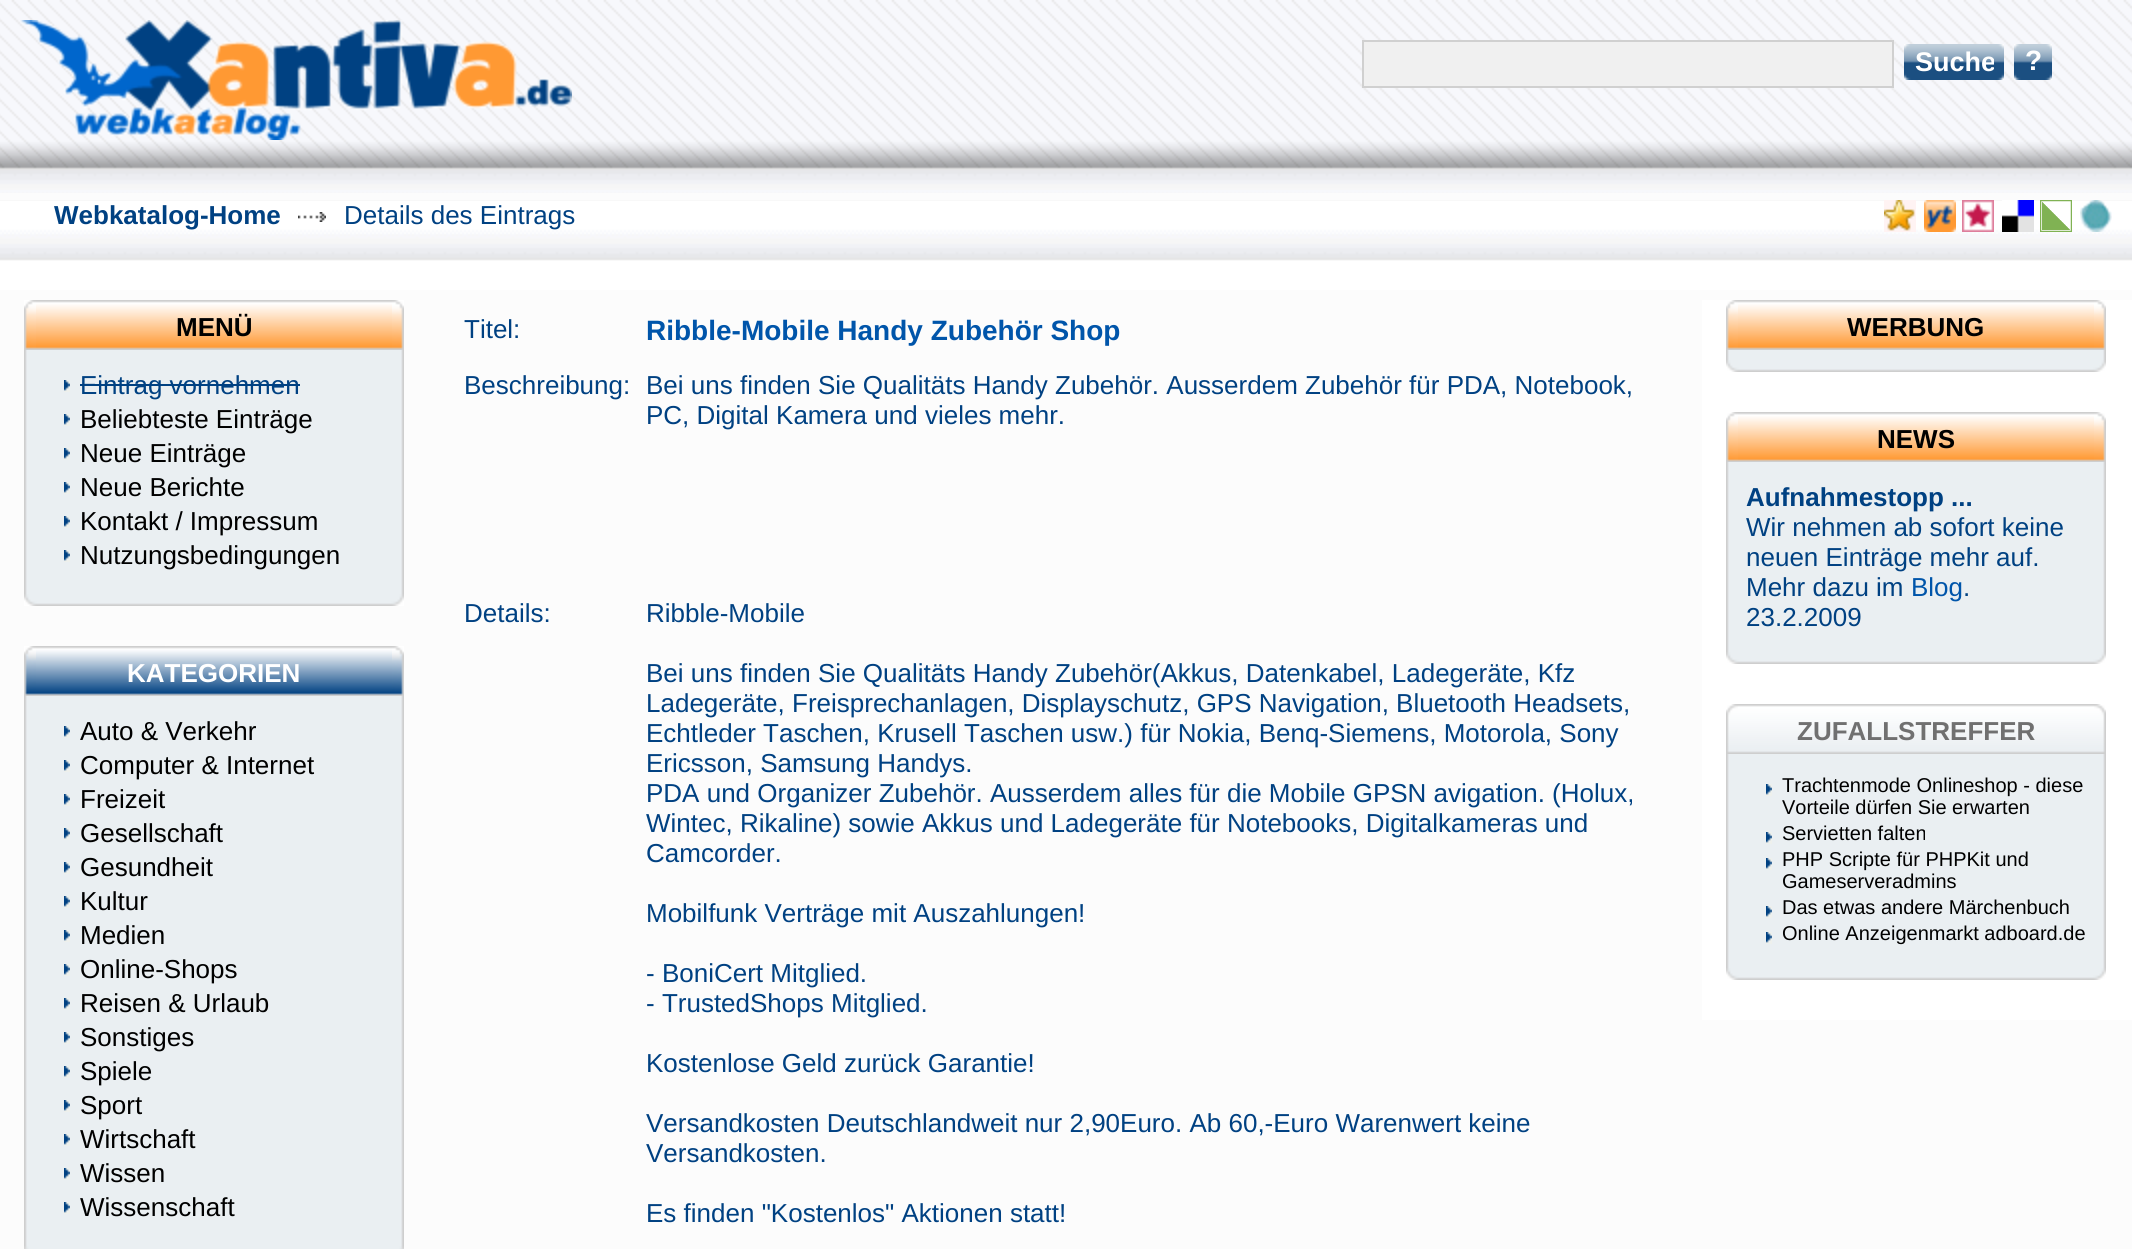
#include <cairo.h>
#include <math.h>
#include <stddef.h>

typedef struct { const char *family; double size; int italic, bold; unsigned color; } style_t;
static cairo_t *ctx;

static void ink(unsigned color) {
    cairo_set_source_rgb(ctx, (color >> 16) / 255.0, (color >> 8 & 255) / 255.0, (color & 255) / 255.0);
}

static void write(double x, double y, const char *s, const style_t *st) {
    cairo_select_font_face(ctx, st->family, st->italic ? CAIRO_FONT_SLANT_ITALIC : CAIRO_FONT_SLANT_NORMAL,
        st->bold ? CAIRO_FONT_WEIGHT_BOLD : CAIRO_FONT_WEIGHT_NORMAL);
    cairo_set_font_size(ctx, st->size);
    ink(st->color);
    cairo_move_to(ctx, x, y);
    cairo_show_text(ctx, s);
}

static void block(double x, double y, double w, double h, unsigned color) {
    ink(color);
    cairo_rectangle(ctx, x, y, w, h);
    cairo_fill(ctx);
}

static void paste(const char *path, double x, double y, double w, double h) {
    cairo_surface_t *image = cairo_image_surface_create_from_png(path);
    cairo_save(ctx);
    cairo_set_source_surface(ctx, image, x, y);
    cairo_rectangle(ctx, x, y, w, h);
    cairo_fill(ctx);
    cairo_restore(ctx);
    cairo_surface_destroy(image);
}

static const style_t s1 = {"Liberation Sans", 27, 0, 1, 0xffffff};
static const style_t s2 = {"Liberation Sans", 28, 0, 1, 0xffffff};
static const style_t s3 = {"Liberation Sans", 26, 0, 1, 0x004182};
static const style_t s4 = {"Liberation Sans", 26, 0, 0, 0x004182};
static const style_t s5 = {"Liberation Sans", 26, 0, 1, 0x000000};
static const style_t s6 = {"Liberation Sans", 26, 0, 0, 0x000000};
static const style_t s7 = {"Liberation Sans", 26, 0, 1, 0xffffff};
static const style_t s8 = {"Liberation Sans", 28, 0, 1, 0x0055aa};
static const style_t s9 = {"Liberation Sans", 26, 0, 0, 0x0055aa};
static const style_t s10 = {"Liberation Sans", 26, 0, 1, 0x707070};
static const style_t s11 = {"Liberation Sans", 20, 0, 0, 0x000000};

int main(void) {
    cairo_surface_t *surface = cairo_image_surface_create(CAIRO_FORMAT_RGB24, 2132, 1249);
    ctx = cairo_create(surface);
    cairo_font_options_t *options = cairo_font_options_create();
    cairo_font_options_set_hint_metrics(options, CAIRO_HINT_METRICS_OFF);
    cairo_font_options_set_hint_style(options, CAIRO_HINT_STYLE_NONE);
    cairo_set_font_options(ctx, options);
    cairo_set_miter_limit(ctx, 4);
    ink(0xfcfcfc);
    cairo_paint(ctx);
    paste("pic1.png", 0, 0, 2132, 193);
    paste("pic2.png", 20, 20, 552, 120);
    ink(0xf0f0f0);
    cairo_rectangle(ctx, 1363, 41, 530, 46);
    cairo_fill_preserve(ctx);
    ink(0xd0d0d0);
    cairo_stroke(ctx);
    paste("pic3.png", 1904, 44, 10, 36);
    paste("pic4.png", 1914, 44, 80, 36);
    write(1915, 71, "Suche", &s1);
    paste("pic5.png", 1994, 44, 10, 36);
    paste("pic3.png", 2014, 44, 10, 36);
    paste("pic6.png", 2024, 44, 18, 36);
    write(2025, 70, "?", &s2);
    paste("pic5.png", 2042, 44, 10, 36);
    block(0, 261, 2132, 29, 0xffffff);
    paste("pic7.png", 0, 200, 2132, 61);
    write(54, 224, "Webkatalog-Home", &s3);
    paste("pic8.png", 298, 212, 28, 10);
    write(344, 224, "Details des Eintrags", &s4);
    paste("pic9.png", 1884, 200, 32, 32);
    paste("pic10.png", 1924, 200, 32, 32);
    paste("pic11.png", 1962, 200, 32, 32);
    paste("pic12.png", 2002, 200, 32, 32);
    paste("pic13.png", 2040, 200, 32, 32);
    paste("pic14.png", 2080, 200, 32, 32);
    paste("pic15.png", 24, 300, 12, 50);
    paste("pic16.png", 36, 300, 356, 50);
    write(176, 336, "MENÜ", &s5);
    paste("pic17.png", 392, 300, 12, 50);
    paste("pic18.png", 24, 350, 380, 244);
    paste("pic19.png", 64, 380, 6, 12);
    write(80, 394, "Eintrag vornehmen", &s4);
    block(80, 384, 220, 2, 0x004182);
    paste("pic19.png", 64, 414, 6, 12);
    write(80, 428, "Beliebteste Einträge", &s6);
    paste("pic19.png", 64, 448, 6, 12);
    write(80, 462, "Neue Einträge", &s6);
    paste("pic19.png", 64, 482, 6, 12);
    write(80, 496, "Neue Berichte", &s6);
    paste("pic19.png", 64, 516, 6, 12);
    write(80, 530, "Kontakt / Impressum", &s6);
    paste("pic19.png", 64, 550, 6, 12);
    write(80, 564, "Nutzungsbedingungen", &s6);
    paste("pic20.png", 24, 594, 380, 12);
    paste("pic21.png", 24, 646, 12, 50);
    paste("pic22.png", 36, 646, 356, 50);
    write(127, 682, "KATEGORIEN", &s7);
    paste("pic23.png", 392, 646, 12, 50);
    paste("pic24.png", 24, 696, 380, 550);
    paste("pic19.png", 64, 726, 6, 12);
    write(80, 740, "Auto & Verkehr", &s6);
    paste("pic19.png", 64, 760, 6, 12);
    write(80, 774, "Computer & Internet", &s6);
    paste("pic19.png", 64, 794, 6, 12);
    write(80, 808, "Freizeit", &s6);
    paste("pic19.png", 64, 828, 6, 12);
    write(80, 842, "Gesellschaft", &s6);
    paste("pic19.png", 64, 862, 6, 12);
    write(80, 876, "Gesundheit", &s6);
    paste("pic19.png", 64, 896, 6, 12);
    write(80, 910, "Kultur", &s6);
    paste("pic19.png", 64, 930, 6, 12);
    write(80, 944, "Medien", &s6);
    paste("pic19.png", 64, 964, 6, 12);
    write(80, 978, "Online-Shops", &s6);
    paste("pic19.png", 64, 998, 6, 12);
    write(80, 1012, "Reisen & Urlaub", &s6);
    paste("pic19.png", 64, 1032, 6, 12);
    write(80, 1046, "Sonstiges", &s6);
    paste("pic19.png", 64, 1066, 6, 12);
    write(80, 1080, "Spiele", &s6);
    paste("pic19.png", 64, 1100, 6, 12);
    write(80, 1114, "Sport", &s6);
    paste("pic19.png", 64, 1134, 6, 12);
    write(80, 1148, "Wirtschaft", &s6);
    paste("pic19.png", 64, 1168, 6, 12);
    write(80, 1182, "Wissen", &s6);
    paste("pic19.png", 64, 1202, 6, 12);
    write(80, 1216, "Wissenschaft", &s6);
    paste("pic25.png", 24, 1246, 380, 3);
    write(464, 338, "Titel:", &s4);
    write(646, 340, "Ribble-Mobile Handy Zubehör Shop", &s8);
    write(464, 394, "Beschreibung:", &s4);
    write(646, 394, "Bei uns finden Sie Qualitäts Handy Zubehör. Ausserdem Zubehör für PDA, Notebook,", &s4);
    write(646, 424, "PC, Digital Kamera und vieles mehr.", &s4);
    write(464, 622, "Details:", &s4);
    write(646, 622, "Ribble-Mobile", &s4);
    write(646, 682, "Bei uns finden Sie Qualitäts Handy Zubehör(Akkus, Datenkabel, Ladegeräte, Kfz", &s4);
    write(646, 712, "Ladegeräte, Freisprechanlagen, Displayschutz, GPS Navigation, Bluetooth Headsets,", &s4);
    write(646, 742, "Echtleder Taschen, Krusell Taschen usw.) für Nokia, Benq-Siemens, Motorola, Sony", &s4);
    write(646, 772, "Ericsson, Samsung Handys.", &s4);
    write(646, 802, "PDA und Organizer Zubehör. Ausserdem alles für die Mobile GPSN avigation. (Holux,", &s4);
    write(646, 832, "Wintec, Rikaline) sowie Akkus und Ladegeräte für Notebooks, Digitalkameras und", &s4);
    write(646, 862, "Camcorder.", &s4);
    write(646, 922, "Mobilfunk Verträge mit Auszahlungen!", &s4);
    write(646, 982, "- BoniCert Mitglied.", &s4);
    write(646, 1012, "- TrustedShops Mitglied.", &s4);
    write(646, 1072, "Kostenlose Geld zurück Garantie!", &s4);
    write(646, 1132, "Versandkosten Deutschlandweit nur 2,90Euro. Ab 60,-Euro Warenwert keine", &s4);
    write(646, 1162, "Versandkosten.", &s4);
    write(646, 1222, "Es finden \"Kostenlos\" Aktionen statt!", &s4);
    block(1702, 300, 430, 720, 0xffffff);
    paste("pic15.png", 1726, 300, 12, 50);
    paste("pic16.png", 1738, 300, 356, 50);
    write(1847, 336, "WERBUNG", &s5);
    paste("pic17.png", 2094, 300, 12, 50);
    paste("pic26.png", 1726, 350, 380, 10);
    paste("pic20.png", 1726, 360, 380, 12);
    paste("pic15.png", 1726, 412, 12, 50);
    paste("pic16.png", 1738, 412, 356, 50);
    write(1877, 448, "NEWS", &s5);
    paste("pic17.png", 2094, 412, 12, 50);
    paste("pic27.png", 1726, 462, 380, 190);
    write(1746, 506, "Aufnahmestopp ...", &s3);
    write(1746, 536, "Wir nehmen ab sofort keine", &s4);
    write(1746, 566, "neuen Einträge mehr auf.", &s4);
    write(1746, 596, "Mehr dazu im", &s4);
    write(1911, 596, "Blog", &s9);
    write(1963, 596, ".", &s4);
    write(1746, 626, "23.2.2009", &s4);
    paste("pic20.png", 1726, 652, 380, 12);
    paste("pic28.png", 1726, 704, 12, 50);
    paste("pic29.png", 1738, 704, 356, 50);
    write(1797, 740, "ZUFALLSTREFFER", &s10);
    paste("pic30.png", 2094, 704, 12, 50);
    paste("pic31.png", 1726, 754, 380, 214);
    paste("pic19.png", 1766, 784, 6, 12);
    write(1782, 792, "Trachtenmode Onlineshop - diese", &s11);
    write(1782, 814, "Vorteile dürfen Sie erwarten", &s11);
    paste("pic19.png", 1766, 832, 6, 12);
    write(1782, 840, "Servietten falten", &s11);
    paste("pic19.png", 1766, 858, 6, 12);
    write(1782, 866, "PHP Scripte für PHPKit und", &s11);
    write(1782, 888, "Gameserveradmins", &s11);
    paste("pic19.png", 1766, 906, 6, 12);
    write(1782, 914, "Das etwas andere Märchenbuch", &s11);
    paste("pic19.png", 1766, 932, 6, 12);
    write(1782, 940, "Online Anzeigenmarkt adboard.de", &s11);
    paste("pic20.png", 1726, 968, 380, 12);
    cairo_surface_write_to_png(surface, "screenshot.png");
    cairo_font_options_destroy(options);
    cairo_destroy(ctx);
    cairo_surface_destroy(surface);
    return 0;
}
